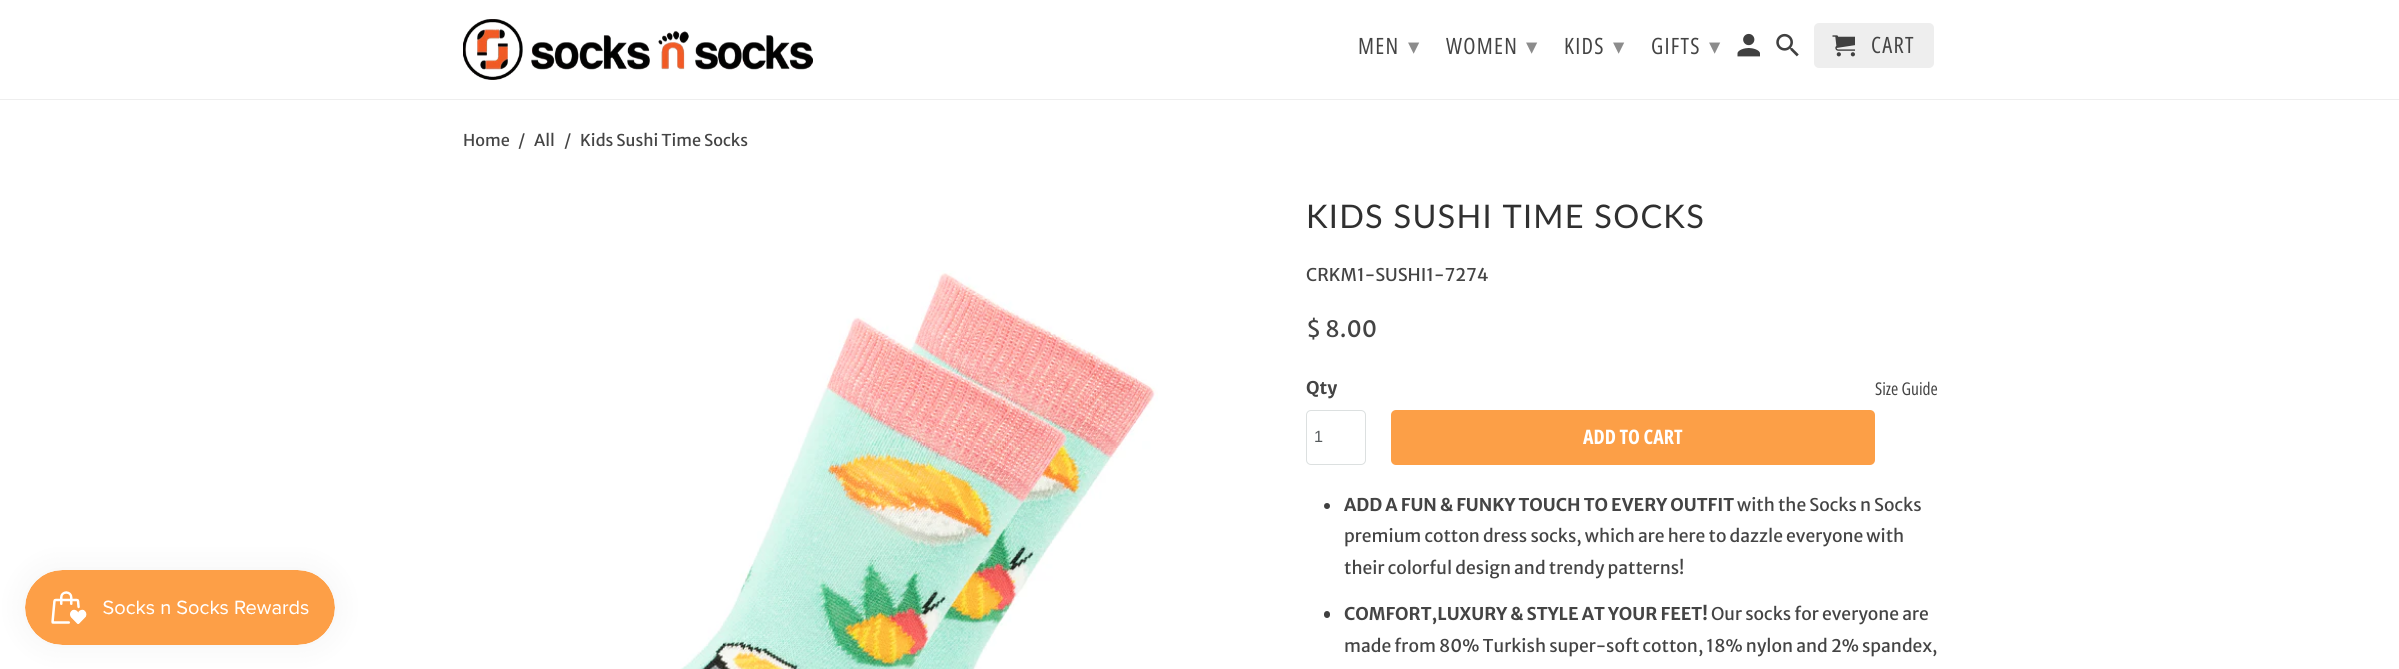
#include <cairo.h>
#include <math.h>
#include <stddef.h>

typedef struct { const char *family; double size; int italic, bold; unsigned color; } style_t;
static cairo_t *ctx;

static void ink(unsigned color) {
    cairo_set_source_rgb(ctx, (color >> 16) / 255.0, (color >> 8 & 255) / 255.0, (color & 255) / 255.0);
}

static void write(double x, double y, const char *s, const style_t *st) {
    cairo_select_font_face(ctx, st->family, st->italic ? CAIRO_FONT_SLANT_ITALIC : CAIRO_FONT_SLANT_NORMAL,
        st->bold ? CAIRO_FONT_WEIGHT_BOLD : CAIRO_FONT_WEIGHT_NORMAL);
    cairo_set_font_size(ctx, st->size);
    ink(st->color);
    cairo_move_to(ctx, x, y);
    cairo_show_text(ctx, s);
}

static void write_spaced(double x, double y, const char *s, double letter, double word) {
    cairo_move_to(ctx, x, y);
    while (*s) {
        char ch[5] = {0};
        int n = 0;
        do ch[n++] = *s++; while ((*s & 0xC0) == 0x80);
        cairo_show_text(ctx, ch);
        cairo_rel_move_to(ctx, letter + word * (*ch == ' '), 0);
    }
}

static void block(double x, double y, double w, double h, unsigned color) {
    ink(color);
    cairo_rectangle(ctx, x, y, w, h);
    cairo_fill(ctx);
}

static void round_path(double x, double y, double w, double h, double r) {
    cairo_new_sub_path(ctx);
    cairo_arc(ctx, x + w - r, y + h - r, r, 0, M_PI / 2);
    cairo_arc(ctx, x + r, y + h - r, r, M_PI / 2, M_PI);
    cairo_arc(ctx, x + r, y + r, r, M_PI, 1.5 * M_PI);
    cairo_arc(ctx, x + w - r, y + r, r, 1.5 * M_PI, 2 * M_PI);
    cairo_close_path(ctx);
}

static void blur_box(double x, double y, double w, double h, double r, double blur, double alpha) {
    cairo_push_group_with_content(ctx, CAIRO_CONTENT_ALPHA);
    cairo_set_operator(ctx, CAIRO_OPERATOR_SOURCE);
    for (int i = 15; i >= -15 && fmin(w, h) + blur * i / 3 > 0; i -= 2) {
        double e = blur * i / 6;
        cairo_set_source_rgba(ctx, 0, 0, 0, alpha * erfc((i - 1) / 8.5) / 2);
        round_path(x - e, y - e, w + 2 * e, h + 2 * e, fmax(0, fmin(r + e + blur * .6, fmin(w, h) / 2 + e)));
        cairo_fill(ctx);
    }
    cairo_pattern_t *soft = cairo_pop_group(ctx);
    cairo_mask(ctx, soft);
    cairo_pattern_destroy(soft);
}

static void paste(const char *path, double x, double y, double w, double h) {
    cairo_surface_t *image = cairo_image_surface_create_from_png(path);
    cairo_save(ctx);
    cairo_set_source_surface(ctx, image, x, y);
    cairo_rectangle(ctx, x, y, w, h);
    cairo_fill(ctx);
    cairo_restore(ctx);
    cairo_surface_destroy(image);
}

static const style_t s1 = {"Merriweather Sans", 16.25, 0, 0, 0x444444};
static const style_t s2 = {"Merriweather Sans", 17.5, 0, 0, 0x444444};
static const style_t s3 = {"Merriweather Sans", 22.5, 0, 0, 0x444444};
static const style_t s4 = {"Merriweather Sans", 17.5, 0, 1, 0x444444};
static const style_t s5 = {"Liberation Sans", 16.25, 0, 0, 0x565a5c};
static const style_t s6 = {"Open Sans Condensed", 20, 0, 1, 0xffffff};
static const style_t s7 = {"Open Sans Condensed", 17.5, 0, 0, 0x444444};

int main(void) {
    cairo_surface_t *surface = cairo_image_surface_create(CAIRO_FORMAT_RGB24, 2399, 669);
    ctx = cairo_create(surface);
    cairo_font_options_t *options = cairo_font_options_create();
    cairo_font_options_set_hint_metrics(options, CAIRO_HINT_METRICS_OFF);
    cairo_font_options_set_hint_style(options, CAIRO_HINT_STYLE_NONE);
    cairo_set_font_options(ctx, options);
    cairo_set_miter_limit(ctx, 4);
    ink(0xffffff);
    cairo_paint(ctx);
    block(0, 99, 2399, 1, 0xeeeeee);
    paste("pic1.png", 463, 19, 350, 61);
    cairo_select_font_face(ctx, "Open Sans Condensed", CAIRO_FONT_SLANT_NORMAL, CAIRO_FONT_WEIGHT_NORMAL);
    cairo_set_font_size(ctx, 22.5);
    ink(0x444444);
    write_spaced(1358, 54, "MEN", 1.25, 0);
    cairo_select_font_face(ctx, "DejaVu Sans", CAIRO_FONT_SLANT_NORMAL, CAIRO_FONT_WEIGHT_NORMAL);
    ink(0x8c8c8c);
    write_spaced(1408, 54, "▾", 1.25, 0);
    cairo_select_font_face(ctx, "Open Sans Condensed", CAIRO_FONT_SLANT_NORMAL, CAIRO_FONT_WEIGHT_NORMAL);
    ink(0x444444);
    write_spaced(1446, 54, "WOMEN", 1.25, 0);
    cairo_select_font_face(ctx, "DejaVu Sans", CAIRO_FONT_SLANT_NORMAL, CAIRO_FONT_WEIGHT_NORMAL);
    ink(0x8c8c8c);
    write_spaced(1526, 54, "▾", 1.25, 0);
    cairo_select_font_face(ctx, "Open Sans Condensed", CAIRO_FONT_SLANT_NORMAL, CAIRO_FONT_WEIGHT_NORMAL);
    ink(0x444444);
    write_spaced(1564, 54, "KIDS", 1.25, 0);
    cairo_select_font_face(ctx, "DejaVu Sans", CAIRO_FONT_SLANT_NORMAL, CAIRO_FONT_WEIGHT_NORMAL);
    ink(0x8c8c8c);
    write_spaced(1613, 54, "▾", 1.25, 0);
    cairo_select_font_face(ctx, "Open Sans Condensed", CAIRO_FONT_SLANT_NORMAL, CAIRO_FONT_WEIGHT_NORMAL);
    ink(0x444444);
    write_spaced(1651, 54, "GIFTS", 1.25, 0);
    cairo_select_font_face(ctx, "DejaVu Sans", CAIRO_FONT_SLANT_NORMAL, CAIRO_FONT_WEIGHT_NORMAL);
    ink(0x8c8c8c);
    write_spaced(1709, 54, "▾", 1.25, 0);
    paste("pic2.png", 1737, 33, 23, 24);
    paste("pic3.png", 1776, 33, 23, 24);
    ink(0xeeeeee);
    round_path(1814, 23, 120, 45, 5);
    cairo_fill(ctx);
    paste("pic4.png", 1832, 35, 23, 22);
    cairo_select_font_face(ctx, "Open Sans Condensed", CAIRO_FONT_SLANT_NORMAL, CAIRO_FONT_WEIGHT_NORMAL);
    ink(0x444444);
    write_spaced(1871, 53, "CART", 1.25, 0);
    ink(0x000000);
    blur_box(25, 570, 310, 75, 37.5, 15.5, 0.05);
    paste("pic5.png", 25, 570, 310, 75);
    write(463, 146, "Home", &s1);
    write(518, 146, "/", &s1);
    write(534, 146, "All", &s1);
    write(564, 146, "/", &s1);
    write(580, 146, "Kids Sushi Time Socks", &s1);
    paste("pic6.png", 680, 270, 478, 399);
    cairo_select_font_face(ctx, "Lato", CAIRO_FONT_SLANT_NORMAL, CAIRO_FONT_WEIGHT_NORMAL);
    cairo_set_font_size(ctx, 32.5);
    ink(0x303030);
    write_spaced(1306, 228, "KIDS SUSHI TIME SOCKS", 1.25, 0);
    write(1306, 281, "CRKM1-SUSHI1-7274", &s2);
    write(1306, 337, "$ 8.00", &s3);
    write(1306, 394, "Qty", &s4);
    round_path(1306.5, 410.5, 59, 54, 4.5);
    ink(0xdce0e0);
    cairo_set_line_width(ctx, 1);
    cairo_stroke(ctx);
    write(1314, 442, "1", &s5);
    ink(0xfc9f47);
    round_path(1391, 410, 484, 55, 5);
    cairo_fill(ctx);
    write(1583, 444, "ADD TO CART", &s6);
    write(1875, 395, "Size Guide", &s7);
    ink(0x404040);
    cairo_new_path(ctx);
    cairo_arc(ctx, 1327, 506, 3, 0, 2 * M_PI);
    cairo_fill(ctx);
    write(1344, 511, "ADD A FUN & FUNKY TOUCH TO EVERY OUTFIT", &s4);
    write(1737, 511, "with the Socks n Socks", &s2);
    write(1344, 542, "premium cotton dress socks, which are here to dazzle everyone with", &s2);
    write(1344, 574, "their colorful design and trendy patterns!", &s2);
    ink(0x404040);
    round_path(1324, 611, 6, 7, 3);
    cairo_fill(ctx);
    write(1344, 620, "COMFORT,LUXURY & STYLE AT YOUR FEET!", &s4);
    write(1711, 620, "Our socks for everyone are", &s2);
    write(1344, 652, "made from 80% Turkish super-soft cotton, 18% nylon and 2% spandex,", &s2);
    cairo_surface_write_to_png(surface, "screenshot.png");
    cairo_font_options_destroy(options);
    cairo_destroy(ctx);
    cairo_surface_destroy(surface);
    return 0;
}
